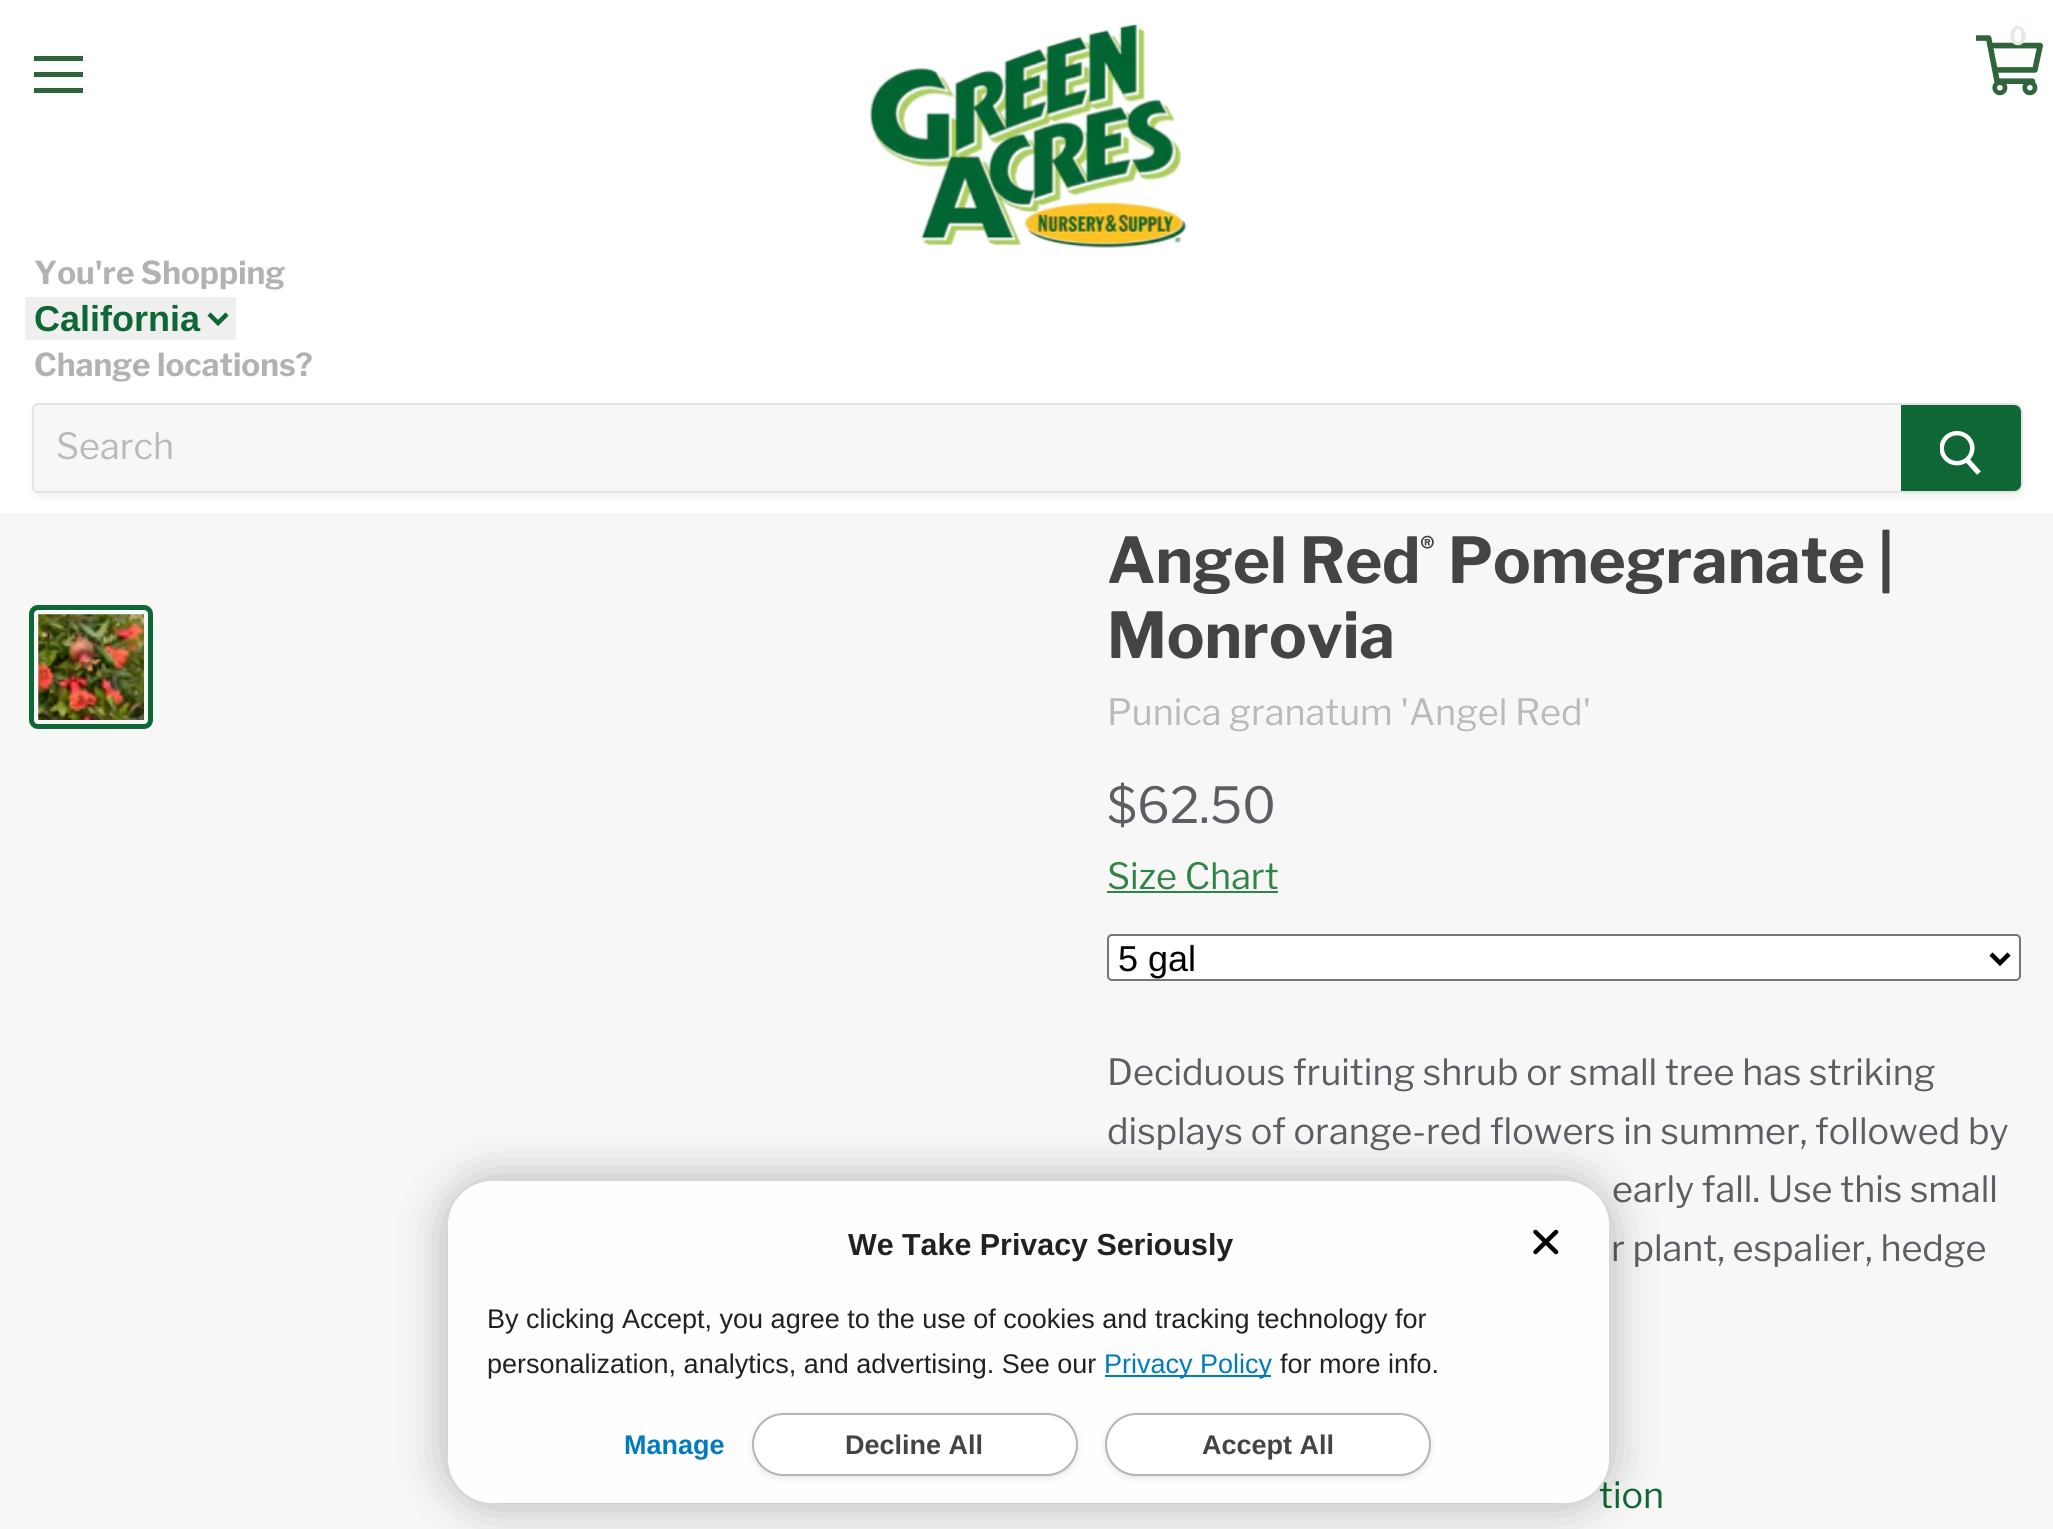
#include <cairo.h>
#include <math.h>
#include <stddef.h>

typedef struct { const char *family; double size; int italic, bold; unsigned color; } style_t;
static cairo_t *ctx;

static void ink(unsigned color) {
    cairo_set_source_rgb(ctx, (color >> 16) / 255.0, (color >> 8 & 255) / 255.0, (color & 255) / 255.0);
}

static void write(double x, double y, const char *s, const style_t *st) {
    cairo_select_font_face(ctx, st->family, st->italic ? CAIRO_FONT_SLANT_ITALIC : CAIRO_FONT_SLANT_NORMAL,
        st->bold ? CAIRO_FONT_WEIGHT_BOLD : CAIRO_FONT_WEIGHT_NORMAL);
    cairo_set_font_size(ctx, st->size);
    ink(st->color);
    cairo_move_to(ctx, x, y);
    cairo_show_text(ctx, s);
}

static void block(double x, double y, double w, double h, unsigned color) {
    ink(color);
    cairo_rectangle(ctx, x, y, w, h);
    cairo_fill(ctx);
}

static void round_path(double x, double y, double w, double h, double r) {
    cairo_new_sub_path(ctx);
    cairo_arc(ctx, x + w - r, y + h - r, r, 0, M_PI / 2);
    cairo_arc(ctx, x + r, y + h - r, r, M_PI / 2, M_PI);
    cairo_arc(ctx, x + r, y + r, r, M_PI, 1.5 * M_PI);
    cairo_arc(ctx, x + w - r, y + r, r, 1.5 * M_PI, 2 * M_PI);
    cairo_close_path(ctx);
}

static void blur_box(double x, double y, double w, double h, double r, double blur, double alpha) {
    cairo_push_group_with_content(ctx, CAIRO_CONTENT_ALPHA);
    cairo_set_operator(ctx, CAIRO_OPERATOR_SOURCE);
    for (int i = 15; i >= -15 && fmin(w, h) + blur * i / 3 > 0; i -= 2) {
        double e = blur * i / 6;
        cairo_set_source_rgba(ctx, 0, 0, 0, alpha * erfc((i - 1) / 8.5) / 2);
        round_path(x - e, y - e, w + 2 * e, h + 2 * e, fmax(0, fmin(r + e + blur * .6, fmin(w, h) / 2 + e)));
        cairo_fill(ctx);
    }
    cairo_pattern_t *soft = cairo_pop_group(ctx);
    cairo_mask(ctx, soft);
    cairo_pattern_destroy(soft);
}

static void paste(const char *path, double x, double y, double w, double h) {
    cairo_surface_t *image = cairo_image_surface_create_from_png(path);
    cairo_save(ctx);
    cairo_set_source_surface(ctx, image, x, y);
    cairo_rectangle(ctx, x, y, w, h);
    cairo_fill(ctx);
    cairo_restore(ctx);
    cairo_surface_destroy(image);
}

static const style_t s1 = {"Libre Franklin", 25, 0, 1, 0xe3ebe5};
static const style_t s2 = {"Libre Franklin", 31.5, 0, 1, 0xb2b2b2};
static const style_t s3 = {"Liberation Sans", 36, 0, 1, 0x0f6735};
static const style_t s4 = {"Libre Franklin", 36, 0, 0, 0xb9babc};
static const style_t s5 = {"Libre Franklin", 63, 0, 1, 0x444444};
static const style_t s6 = {"Libre Franklin", 27, 0, 1, 0x444444};
static const style_t s7 = {"Libre Franklin", 49.5, 0, 0, 0x5c5e63};
static const style_t s8 = {"Libre Franklin", 36, 0, 0, 0x318447};
static const style_t s9 = {"Liberation Sans", 36, 0, 0, 0x000000};
static const style_t s10 = {"Libre Franklin", 36, 0, 0, 0x5c5e63};
static const style_t s11 = {"Libre Franklin", 36, 0, 0, 0x0f6735};
static const style_t s12 = {"Liberation Sans", 30.4, 0, 1, 0x212121};
static const style_t s13 = {"Liberation Sans", 27, 0, 0, 0x212121};
static const style_t s14 = {"Liberation Sans", 27, 0, 0, 0x007bbd};
static const style_t s15 = {"Liberation Sans", 27, 0, 1, 0x007bbd};
static const style_t s16 = {"Liberation Sans", 27, 0, 1, 0x444444};

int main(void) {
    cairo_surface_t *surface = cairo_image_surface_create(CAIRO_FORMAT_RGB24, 2053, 1529);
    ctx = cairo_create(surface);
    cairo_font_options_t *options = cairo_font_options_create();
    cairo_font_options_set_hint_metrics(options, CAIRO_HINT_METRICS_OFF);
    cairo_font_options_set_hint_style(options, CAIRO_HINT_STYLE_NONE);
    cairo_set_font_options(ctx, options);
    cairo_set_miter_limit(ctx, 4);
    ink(0xf7f7f7);
    cairo_paint(ctx);
    block(0, 0, 2053, 513, 0xffffff);
    paste("pic1.png", 1976, 35, 67, 61);
    write(2009, 45, "0", &s1);
    block(34, 56, 49, 5, 0x2f653a);
    block(34, 72, 49, 5, 0x2f653a);
    block(34, 88, 49, 5, 0x2f653a);
    paste("pic2.png", 869, 23, 318, 225);
    write(34, 284, "You're Shopping", &s2);
    block(25, 297, 211, 43, 0xefefef);
    cairo_new_path(ctx);
    cairo_move_to(ctx, 209, 314);
    cairo_line_to(ctx, 218, 323);
    cairo_line_to(ctx, 227, 314);
    ink(0x0f6735);
    cairo_set_line_width(ctx, 4.5);
    cairo_stroke(ctx);
    write(34, 331, "California", &s3);
    write(34, 376, "Change locations?", &s2);
    cairo_save(ctx);
    cairo_set_fill_rule(ctx, CAIRO_FILL_RULE_EVEN_ODD);
    cairo_new_path(ctx);
    cairo_move_to(ctx, 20, 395);
    cairo_line_to(ctx, 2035, 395);
    cairo_line_to(ctx, 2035, 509);
    cairo_line_to(ctx, 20, 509);
    cairo_close_path(ctx);
    cairo_move_to(ctx, 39, 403);
    cairo_line_to(ctx, 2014, 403);
    cairo_curve_to(ctx, 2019, 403, 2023, 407, 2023, 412);
    cairo_line_to(ctx, 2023, 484);
    cairo_curve_to(ctx, 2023, 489, 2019, 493, 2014, 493);
    cairo_line_to(ctx, 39, 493);
    cairo_curve_to(ctx, 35, 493, 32, 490, 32, 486);
    cairo_line_to(ctx, 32, 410);
    cairo_curve_to(ctx, 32, 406, 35, 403, 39, 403);
    cairo_close_path(ctx);
    cairo_clip(ctx);
    ink(0x7b7b7b);
    blur_box(32, 407, 1991, 90, 9, 3.5, 0.11);
    cairo_restore(ctx);
    cairo_new_path(ctx);
    cairo_move_to(ctx, 39, 404);
    cairo_line_to(ctx, 2014, 404);
    cairo_curve_to(ctx, 2018.5, 404, 2022, 407.5, 2022, 412);
    cairo_line_to(ctx, 2022, 484);
    cairo_curve_to(ctx, 2022, 488.5, 2018.5, 492, 2014, 492);
    cairo_line_to(ctx, 39, 492);
    cairo_curve_to(ctx, 35.5, 492, 33, 489.5, 33, 486);
    cairo_line_to(ctx, 33, 410);
    cairo_curve_to(ctx, 33, 406.5, 35.5, 404, 39, 404);
    cairo_close_path(ctx);
    cairo_set_source_rgba(ctx, 0.482, 0.482, 0.482, 0.2);
    cairo_set_line_width(ctx, 2);
    cairo_stroke(ctx);
    ink(0xf7f7f7);
    cairo_new_path(ctx);
    cairo_move_to(ctx, 41, 405);
    cairo_line_to(ctx, 1901, 405);
    cairo_line_to(ctx, 1901, 491);
    cairo_line_to(ctx, 41, 491);
    cairo_curve_to(ctx, 37, 491, 34, 488, 34, 484);
    cairo_line_to(ctx, 34, 412);
    cairo_curve_to(ctx, 34, 408, 37, 405, 41, 405);
    cairo_close_path(ctx);
    cairo_fill(ctx);
    write(56, 459, "Search", &s4);
    ink(0x0f6735);
    cairo_new_path(ctx);
    cairo_move_to(ctx, 1902, 406);
    cairo_line_to(ctx, 2014, 406);
    cairo_curve_to(ctx, 2017.5, 406, 2020, 408.5, 2020, 412);
    cairo_line_to(ctx, 2020, 484);
    cairo_curve_to(ctx, 2020, 487.5, 2017.5, 490, 2014, 490);
    cairo_line_to(ctx, 1902, 490);
    cairo_close_path(ctx);
    cairo_fill_preserve(ctx);
    cairo_stroke(ctx);
    paste("pic3.png", 1940, 431, 41, 44);
    round_path(31.5, 607.5, 119, 119, 6.5);
    cairo_set_line_width(ctx, 5);
    cairo_stroke(ctx);
    paste("pic4.png", 38, 614, 106, 106);
    write(1107, 583, "Angel Red", &s5);
    write(1420, 556, "®", &s6);
    write(1448, 583, "Pomegranate |", &s5);
    write(1107, 658, "Monrovia", &s5);
    write(1107, 725, "Punica granatum 'Angel Red'", &s4);
    write(1107, 823, "$62.50", &s7);
    write(1107, 889, "Size Chart", &s8);
    block(1107, 891, 171, 2, 0x318447);
    ink(0xffffff);
    round_path(1108, 935, 912, 45, 4);
    cairo_fill_preserve(ctx);
    ink(0x767676);
    cairo_set_line_width(ctx, 2);
    cairo_stroke(ctx);
    cairo_new_path(ctx);
    cairo_move_to(ctx, 1991, 954);
    cairo_line_to(ctx, 2000, 963);
    cairo_line_to(ctx, 2009, 954);
    ink(0x000000);
    cairo_set_line_width(ctx, 4.5);
    cairo_stroke(ctx);
    write(1118, 971, "5 gal", &s9);
    write(1107, 1085, "Deciduous fruiting shrub or small tree has striking", &s10);
    write(1107, 1144, "displays of orange-red flowers in summer, followed by", &s10);
    write(1612, 1202, "early fall. Use this small", &s10);
    write(1611, 1261, "r plant, espalier, hedge", &s10);
    write(1599, 1508, "tion", &s11);
    cairo_save(ctx);
    cairo_set_fill_rule(ctx, CAIRO_FILL_RULE_EVEN_ODD);
    cairo_new_path(ctx);
    cairo_move_to(ctx, 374, 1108);
    cairo_line_to(ctx, 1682, 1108);
    cairo_line_to(ctx, 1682, 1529);
    cairo_line_to(ctx, 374, 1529);
    cairo_close_path(ctx);
    cairo_move_to(ctx, 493, 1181);
    cairo_line_to(ctx, 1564, 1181);
    cairo_curve_to(ctx, 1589, 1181, 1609, 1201, 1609, 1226);
    cairo_line_to(ctx, 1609, 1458);
    cairo_curve_to(ctx, 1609, 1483, 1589, 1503, 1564, 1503);
    cairo_line_to(ctx, 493, 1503);
    cairo_curve_to(ctx, 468, 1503, 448, 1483, 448, 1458);
    cairo_line_to(ctx, 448, 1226);
    cairo_curve_to(ctx, 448, 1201, 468, 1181, 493, 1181);
    cairo_close_path(ctx);
    cairo_clip(ctx);
    ink(0x000000);
    blur_box(443, 1177, 1170, 331, 50, 22.5, 0.25);
    cairo_restore(ctx);
    cairo_set_source_rgba(ctx, 1, 1, 1, 0.85);
    round_path(448, 1181, 1161, 322, 45);
    cairo_fill(ctx);
    write(848, 1255, "We Take Privacy Seriously", &s12);
    cairo_new_path(ctx);
    cairo_move_to(ctx, 1556, 1232);
    cairo_line_to(ctx, 1535.5, 1252);
    cairo_move_to(ctx, 1535.5, 1232);
    cairo_line_to(ctx, 1556, 1252);
    ink(0x000000);
    cairo_set_line_cap(ctx, CAIRO_LINE_CAP_ROUND);
    cairo_set_line_join(ctx, CAIRO_LINE_JOIN_ROUND);
    cairo_stroke(ctx);
    write(487, 1328, "By clicking Accept, you agree to the use of cookies and tracking technology for", &s13);
    write(487, 1373, "personalization, analytics, and advertising. See our", &s13);
    block(1105, 1375, 166, 2, 0x007bbd);
    write(1104, 1373, "Privacy Policy", &s14);
    write(1280, 1373, "for more info.", &s13);
    write(624, 1454, "Manage", &s15);
    ink(0x000000);
    blur_box(752, 1415, 326, 63, 31.5, 3.5, 0.1);
    ink(0xffffff);
    round_path(753, 1414, 324, 61, 30.5);
    cairo_fill_preserve(ctx);
    ink(0xb4b4b4);
    cairo_set_line_width(ctx, 2);
    cairo_set_line_cap(ctx, CAIRO_LINE_CAP_BUTT);
    cairo_set_line_join(ctx, CAIRO_LINE_JOIN_MITER);
    cairo_stroke(ctx);
    write(845, 1454, "Decline All", &s16);
    ink(0x000000);
    blur_box(1105, 1415, 326, 63, 31.5, 3.5, 0.1);
    ink(0xffffff);
    round_path(1106, 1414, 324, 61, 30.5);
    cairo_fill_preserve(ctx);
    ink(0xb4b4b4);
    cairo_stroke(ctx);
    write(1202, 1454, "Accept All", &s16);
    cairo_surface_write_to_png(surface, "screenshot.png");
    cairo_font_options_destroy(options);
    cairo_destroy(ctx);
    cairo_surface_destroy(surface);
    return 0;
}
